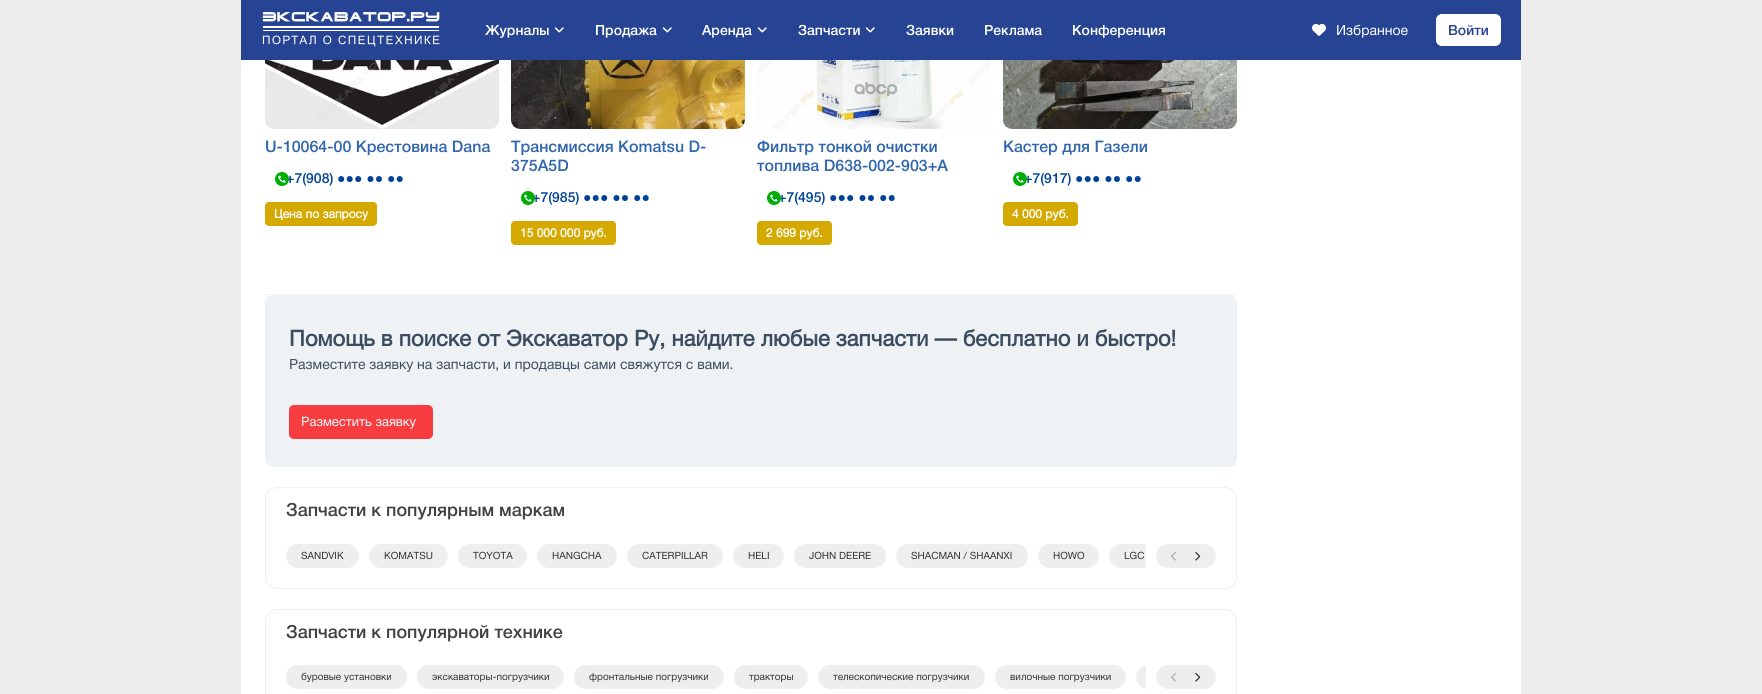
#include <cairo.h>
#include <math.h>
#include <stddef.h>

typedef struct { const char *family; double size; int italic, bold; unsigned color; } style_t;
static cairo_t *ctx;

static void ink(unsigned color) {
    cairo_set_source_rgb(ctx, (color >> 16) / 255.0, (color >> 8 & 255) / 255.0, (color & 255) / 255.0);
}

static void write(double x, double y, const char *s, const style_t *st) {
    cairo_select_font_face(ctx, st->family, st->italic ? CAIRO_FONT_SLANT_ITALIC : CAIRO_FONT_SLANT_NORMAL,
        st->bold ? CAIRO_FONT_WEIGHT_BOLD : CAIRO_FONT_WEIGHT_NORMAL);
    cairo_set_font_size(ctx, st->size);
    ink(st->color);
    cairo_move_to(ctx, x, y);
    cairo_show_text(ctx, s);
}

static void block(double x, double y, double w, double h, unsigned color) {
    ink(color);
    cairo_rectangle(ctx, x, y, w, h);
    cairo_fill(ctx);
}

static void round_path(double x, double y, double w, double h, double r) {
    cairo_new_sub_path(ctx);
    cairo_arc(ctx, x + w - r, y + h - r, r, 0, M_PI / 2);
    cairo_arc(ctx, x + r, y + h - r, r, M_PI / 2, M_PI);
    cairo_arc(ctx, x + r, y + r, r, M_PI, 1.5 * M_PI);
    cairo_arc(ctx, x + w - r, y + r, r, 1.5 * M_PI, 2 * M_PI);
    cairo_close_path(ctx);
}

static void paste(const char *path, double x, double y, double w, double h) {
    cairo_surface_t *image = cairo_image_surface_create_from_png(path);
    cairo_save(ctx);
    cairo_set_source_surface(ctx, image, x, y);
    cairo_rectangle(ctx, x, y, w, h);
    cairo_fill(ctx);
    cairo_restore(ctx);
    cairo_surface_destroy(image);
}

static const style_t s1 = {"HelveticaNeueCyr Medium", 14, 0, 0, 0xffffff};
static const style_t s2 = {"HelveticaNeueCyr", 14, 0, 0, 0xffffff};
static const style_t s3 = {"HelveticaNeueCyr Medium", 14, 0, 0, 0x264493};
static const style_t s4 = {"HelveticaNeueCyr Medium", 16, 0, 0, 0x3066ae};
static const style_t s5 = {"HelveticaNeueCyr Medium", 14, 0, 0, 0x004297};
static const style_t s6 = {"Liberation Sans", 14, 0, 0, 0x004297};
static const style_t s7 = {"HelveticaNeueCyr", 12, 0, 1, 0xffffff};
static const style_t s8 = {"HelveticaNeueCyr", 22, 0, 1, 0x3b4c5e};
static const style_t s9 = {"HelveticaNeueCyr", 14, 0, 0, 0x3b4c5e};
static const style_t s10 = {"HelveticaNeueCyr", 13, 0, 0, 0xffffff};
static const style_t s11 = {"HelveticaNeueCyr Medium", 18, 0, 0, 0x414141};
static const style_t s12 = {"HelveticaNeueCyr", 10, 0, 0, 0x333333};

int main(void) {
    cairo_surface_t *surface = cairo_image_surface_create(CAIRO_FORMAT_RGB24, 1762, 694);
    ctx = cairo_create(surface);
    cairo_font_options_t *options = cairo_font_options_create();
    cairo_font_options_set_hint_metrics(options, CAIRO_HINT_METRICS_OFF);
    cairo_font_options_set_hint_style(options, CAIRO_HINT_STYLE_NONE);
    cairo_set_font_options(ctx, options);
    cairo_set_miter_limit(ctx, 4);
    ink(0xeeeeee);
    cairo_paint(ctx);
    block(241, 60, 1280, 634, 0xffffff);
    ink(0xe9e9e9);
    round_path(265, -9, 234, 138, 9);
    cairo_fill(ctx);
    round_path(511, -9, 234, 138, 9);
    cairo_fill(ctx);
    round_path(757, -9, 234, 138, 9);
    cairo_fill(ctx);
    round_path(1003, -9, 234, 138, 9);
    cairo_fill(ctx);
    block(241, 0, 1280, 60, 0x264493);
    paste("pic1.png", 262, 12, 178, 35);
    write(485, 35, "Журналы", &s1);
    paste("pic2.png", 554, 27, 10, 6);
    write(595, 35, "Продажа", &s1);
    paste("pic2.png", 662, 27, 10, 6);
    write(702, 35, "Аренда", &s1);
    paste("pic2.png", 757, 27, 10, 6);
    write(798, 35, "Запчасти", &s1);
    paste("pic2.png", 865, 27, 10, 6);
    write(906, 35, "Заявки", &s1);
    write(984, 35, "Реклама", &s1);
    write(1072, 35, "Конференция", &s1);
    paste("pic3.png", 1312, 23, 14, 13);
    write(1336, 35, "Избранное", &s2);
    round_path(1436.5, 14.5, 64, 31, 5.5);
    cairo_fill_preserve(ctx);
    cairo_set_line_width(ctx, 1);
    cairo_stroke(ctx);
    write(1448, 35, "Войти", &s3);
    block(265, 294, 972, 1, 0xf0f0f0);
    paste("pic4.png", 265, 60, 234, 69);
    write(265, 152, "U-10064-00 Крестовина Dana", &s4);
    write(286, 183, "+7(908)", &s5);
    paste("pic5.png", 275, 172, 14, 14);
    write(337, 183, "●●● ●● ●●", &s6);
    ink(0xd5a900);
    round_path(265, 202, 112, 24, 4);
    cairo_fill(ctx);
    write(274, 218, "Цена по запросу", &s7);
    paste("pic6.png", 511, 60, 234, 69);
    write(511, 152, "Трансмиссия Komatsu D-", &s4);
    write(511, 171, "375A5D", &s4);
    write(532, 202, "+7(985)", &s5);
    paste("pic5.png", 521, 191, 14, 14);
    write(583, 202, "●●● ●● ●●", &s6);
    ink(0xd5a900);
    round_path(511, 221, 105, 24, 4);
    cairo_fill(ctx);
    write(520, 237, "15 000 000 руб.", &s7);
    paste("pic7.png", 757, 60, 234, 69);
    write(757, 152, "Фильтр тонкой очистки", &s4);
    write(757, 171, "топлива D638-002-903+A", &s4);
    write(778, 202, "+7(495)", &s5);
    paste("pic5.png", 767, 191, 14, 14);
    write(829, 202, "●●● ●● ●●", &s6);
    ink(0xd5a900);
    round_path(757, 221, 75, 24, 4);
    cairo_fill(ctx);
    write(766, 237, "2 699 руб.", &s7);
    paste("pic8.png", 1003, 60, 234, 69);
    write(1003, 152, "Кастер для Газели", &s4);
    write(1024, 183, "+7(917)", &s5);
    paste("pic5.png", 1013, 172, 14, 14);
    write(1075, 183, "●●● ●● ●●", &s6);
    ink(0xd5a900);
    round_path(1003, 202, 75, 24, 4);
    cairo_fill(ctx);
    write(1012, 218, "4 000 руб.", &s7);
    ink(0xeff2f5);
    round_path(265, 295, 972, 172, 8);
    cairo_fill(ctx);
    write(289, 346, "Помощь в поиске от Экскаватор Ру, найдите любые запчасти — бесплатно и быстро!", &s8);
    write(289, 369, "Разместите заявку на запчасти, и продавцы сами свяжутся с вами.", &s9);
    ink(0xf73d40);
    round_path(289, 405, 144, 34, 5);
    cairo_fill(ctx);
    write(301, 426, "Разместить заявку", &s10);
    round_path(265.5, 487.5, 971, 101, 11.5);
    ink(0xeeeeee);
    cairo_stroke(ctx);
    write(286, 516, "Запчасти к популярным маркам", &s11);
    ink(0xeeeeee);
    round_path(286, 544, 73, 24, 12);
    cairo_fill(ctx);
    write(301, 559, "SANDVIK", &s12);
    ink(0xeeeeee);
    round_path(369, 544, 79, 24, 12);
    cairo_fill(ctx);
    write(384, 559, "KOMATSU", &s12);
    ink(0xeeeeee);
    round_path(458, 544, 69, 24, 12);
    cairo_fill(ctx);
    write(473, 559, "TOYOTA", &s12);
    ink(0xeeeeee);
    round_path(537, 544, 80, 24, 12);
    cairo_fill(ctx);
    write(552, 559, "HANGCHA", &s12);
    ink(0xeeeeee);
    round_path(627, 544, 96, 24, 12);
    cairo_fill(ctx);
    write(642, 559, "CATERPILLAR", &s12);
    ink(0xeeeeee);
    round_path(733, 544, 51, 24, 12);
    cairo_fill(ctx);
    write(748, 559, "HELI", &s12);
    ink(0xeeeeee);
    round_path(794, 544, 92, 24, 12);
    cairo_fill(ctx);
    write(809, 559, "JOHN DEERE", &s12);
    ink(0xeeeeee);
    round_path(896, 544, 132, 24, 12);
    cairo_fill(ctx);
    write(911, 559, "SHACMAN / SHAANXI", &s12);
    ink(0xeeeeee);
    round_path(1038, 544, 61, 24, 12);
    cairo_fill(ctx);
    write(1053, 559, "HOWO", &s12);
    ink(0xeeeeee);
    cairo_new_path(ctx);
    cairo_move_to(ctx, 1121, 544);
    cairo_line_to(ctx, 1146, 544);
    cairo_line_to(ctx, 1146, 568);
    cairo_line_to(ctx, 1121, 568);
    cairo_curve_to(ctx, 1114.5, 568, 1109, 562.5, 1109, 556);
    cairo_curve_to(ctx, 1109, 549.5, 1114.5, 544, 1121, 544);
    cairo_close_path(ctx);
    cairo_fill(ctx);
    write(1124, 559, "LGC", &s12);
    ink(0xeeeeee);
    cairo_new_path(ctx);
    cairo_move_to(ctx, 1168, 544);
    cairo_line_to(ctx, 1186, 544);
    cairo_line_to(ctx, 1186, 568);
    cairo_line_to(ctx, 1168, 568);
    cairo_curve_to(ctx, 1161.5, 568, 1156, 562.5, 1156, 556);
    cairo_curve_to(ctx, 1156, 549.5, 1161.5, 544, 1168, 544);
    cairo_close_path(ctx);
    cairo_fill(ctx);
    paste("pic9.png", 1171, 552, 5, 9);
    cairo_new_path(ctx);
    cairo_move_to(ctx, 1186, 544);
    cairo_line_to(ctx, 1204, 544);
    cairo_curve_to(ctx, 1210.5, 544, 1216, 549.5, 1216, 556);
    cairo_curve_to(ctx, 1216, 562.5, 1210.5, 568, 1204, 568);
    cairo_line_to(ctx, 1186, 568);
    cairo_close_path(ctx);
    cairo_fill(ctx);
    paste("pic10.png", 1195, 551, 6, 10);
    round_path(265.5, 609.5, 971, 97, 11.5);
    cairo_stroke(ctx);
    write(286, 638, "Запчасти к популярной технике", &s11);
    ink(0xeeeeee);
    round_path(286, 665, 121, 24, 12);
    cairo_fill(ctx);
    write(301, 680, "буровые установки", &s12);
    ink(0xeeeeee);
    round_path(417, 665, 147, 24, 12);
    cairo_fill(ctx);
    write(432, 680, "экскаваторы-погрузчики", &s12);
    ink(0xeeeeee);
    round_path(574, 665, 150, 24, 12);
    cairo_fill(ctx);
    write(589, 680, "фронтальные погрузчики", &s12);
    ink(0xeeeeee);
    round_path(734, 665, 74, 24, 12);
    cairo_fill(ctx);
    write(749, 680, "тракторы", &s12);
    ink(0xeeeeee);
    round_path(818, 665, 167, 24, 12);
    cairo_fill(ctx);
    write(833, 680, "телескопические погрузчики", &s12);
    ink(0xeeeeee);
    round_path(995, 665, 131, 24, 12);
    cairo_fill(ctx);
    write(1010, 680, "вилочные погрузчики", &s12);
    ink(0xeeeeee);
    cairo_new_path(ctx);
    cairo_move_to(ctx, 1148, 665);
    cairo_line_to(ctx, 1146, 665);
    cairo_line_to(ctx, 1146, 689);
    cairo_line_to(ctx, 1148, 689);
    cairo_curve_to(ctx, 1141.5, 689, 1136, 683.5, 1136, 677);
    cairo_curve_to(ctx, 1136, 670.5, 1141.5, 665, 1148, 665);
    cairo_close_path(ctx);
    cairo_fill(ctx);
    cairo_new_path(ctx);
    cairo_move_to(ctx, 1168, 665);
    cairo_line_to(ctx, 1186, 665);
    cairo_line_to(ctx, 1186, 689);
    cairo_line_to(ctx, 1168, 689);
    cairo_curve_to(ctx, 1161.5, 689, 1156, 683.5, 1156, 677);
    cairo_curve_to(ctx, 1156, 670.5, 1161.5, 665, 1168, 665);
    cairo_close_path(ctx);
    cairo_fill(ctx);
    paste("pic9.png", 1171, 673, 5, 9);
    cairo_new_path(ctx);
    cairo_move_to(ctx, 1186, 665);
    cairo_line_to(ctx, 1204, 665);
    cairo_curve_to(ctx, 1210.5, 665, 1216, 670.5, 1216, 677);
    cairo_curve_to(ctx, 1216, 683.5, 1210.5, 689, 1204, 689);
    cairo_line_to(ctx, 1186, 689);
    cairo_close_path(ctx);
    cairo_fill(ctx);
    paste("pic10.png", 1195, 672, 6, 10);
    cairo_surface_write_to_png(surface, "screenshot.png");
    cairo_font_options_destroy(options);
    cairo_destroy(ctx);
    cairo_surface_destroy(surface);
    return 0;
}
